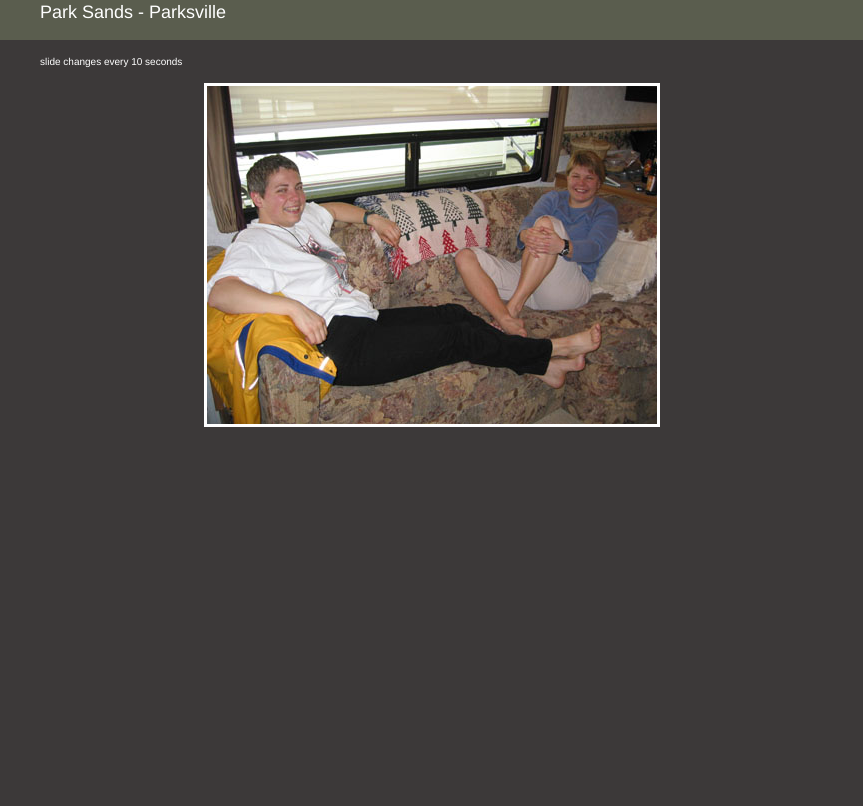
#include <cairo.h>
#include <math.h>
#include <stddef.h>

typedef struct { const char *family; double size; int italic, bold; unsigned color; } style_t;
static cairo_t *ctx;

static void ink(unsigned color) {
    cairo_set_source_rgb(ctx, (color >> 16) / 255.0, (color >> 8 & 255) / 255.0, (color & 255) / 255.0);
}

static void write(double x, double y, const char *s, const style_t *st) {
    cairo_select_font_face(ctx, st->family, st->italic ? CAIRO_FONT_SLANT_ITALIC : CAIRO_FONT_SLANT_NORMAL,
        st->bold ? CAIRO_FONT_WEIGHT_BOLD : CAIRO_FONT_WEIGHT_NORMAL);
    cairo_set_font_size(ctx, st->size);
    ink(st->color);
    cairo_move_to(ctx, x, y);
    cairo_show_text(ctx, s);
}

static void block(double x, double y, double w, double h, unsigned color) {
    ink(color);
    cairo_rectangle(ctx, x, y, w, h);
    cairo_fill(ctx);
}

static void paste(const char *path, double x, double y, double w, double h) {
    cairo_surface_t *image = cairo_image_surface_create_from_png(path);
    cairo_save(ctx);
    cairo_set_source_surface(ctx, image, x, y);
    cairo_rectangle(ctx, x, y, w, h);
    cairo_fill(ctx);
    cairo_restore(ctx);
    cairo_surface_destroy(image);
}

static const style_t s1 = {"Liberation Sans", 18, 0, 0, 0xffffff};
static const style_t s2 = {"Liberation Sans", 10, 0, 0, 0xffffff};

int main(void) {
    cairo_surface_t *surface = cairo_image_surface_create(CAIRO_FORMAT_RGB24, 863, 806);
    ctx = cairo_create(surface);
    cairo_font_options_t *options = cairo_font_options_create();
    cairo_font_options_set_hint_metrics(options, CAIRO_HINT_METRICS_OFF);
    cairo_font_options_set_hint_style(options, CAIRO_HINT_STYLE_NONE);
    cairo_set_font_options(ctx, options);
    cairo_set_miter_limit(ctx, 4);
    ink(0x3c3939);
    cairo_paint(ctx);
    block(0, 0, 863, 40, 0x5a5d4e);
    write(40, 18, "Park Sands - Parksville", &s1);
    write(40, 65, "slide changes every 10 seconds", &s2);
    cairo_rectangle(ctx, 205.5, 84.5, 453, 341);
    cairo_set_line_width(ctx, 3);
    cairo_stroke(ctx);
    paste("pic1.png", 207, 86, 450, 338);
    cairo_surface_write_to_png(surface, "screenshot.png");
    cairo_font_options_destroy(options);
    cairo_destroy(ctx);
    cairo_surface_destroy(surface);
    return 0;
}
